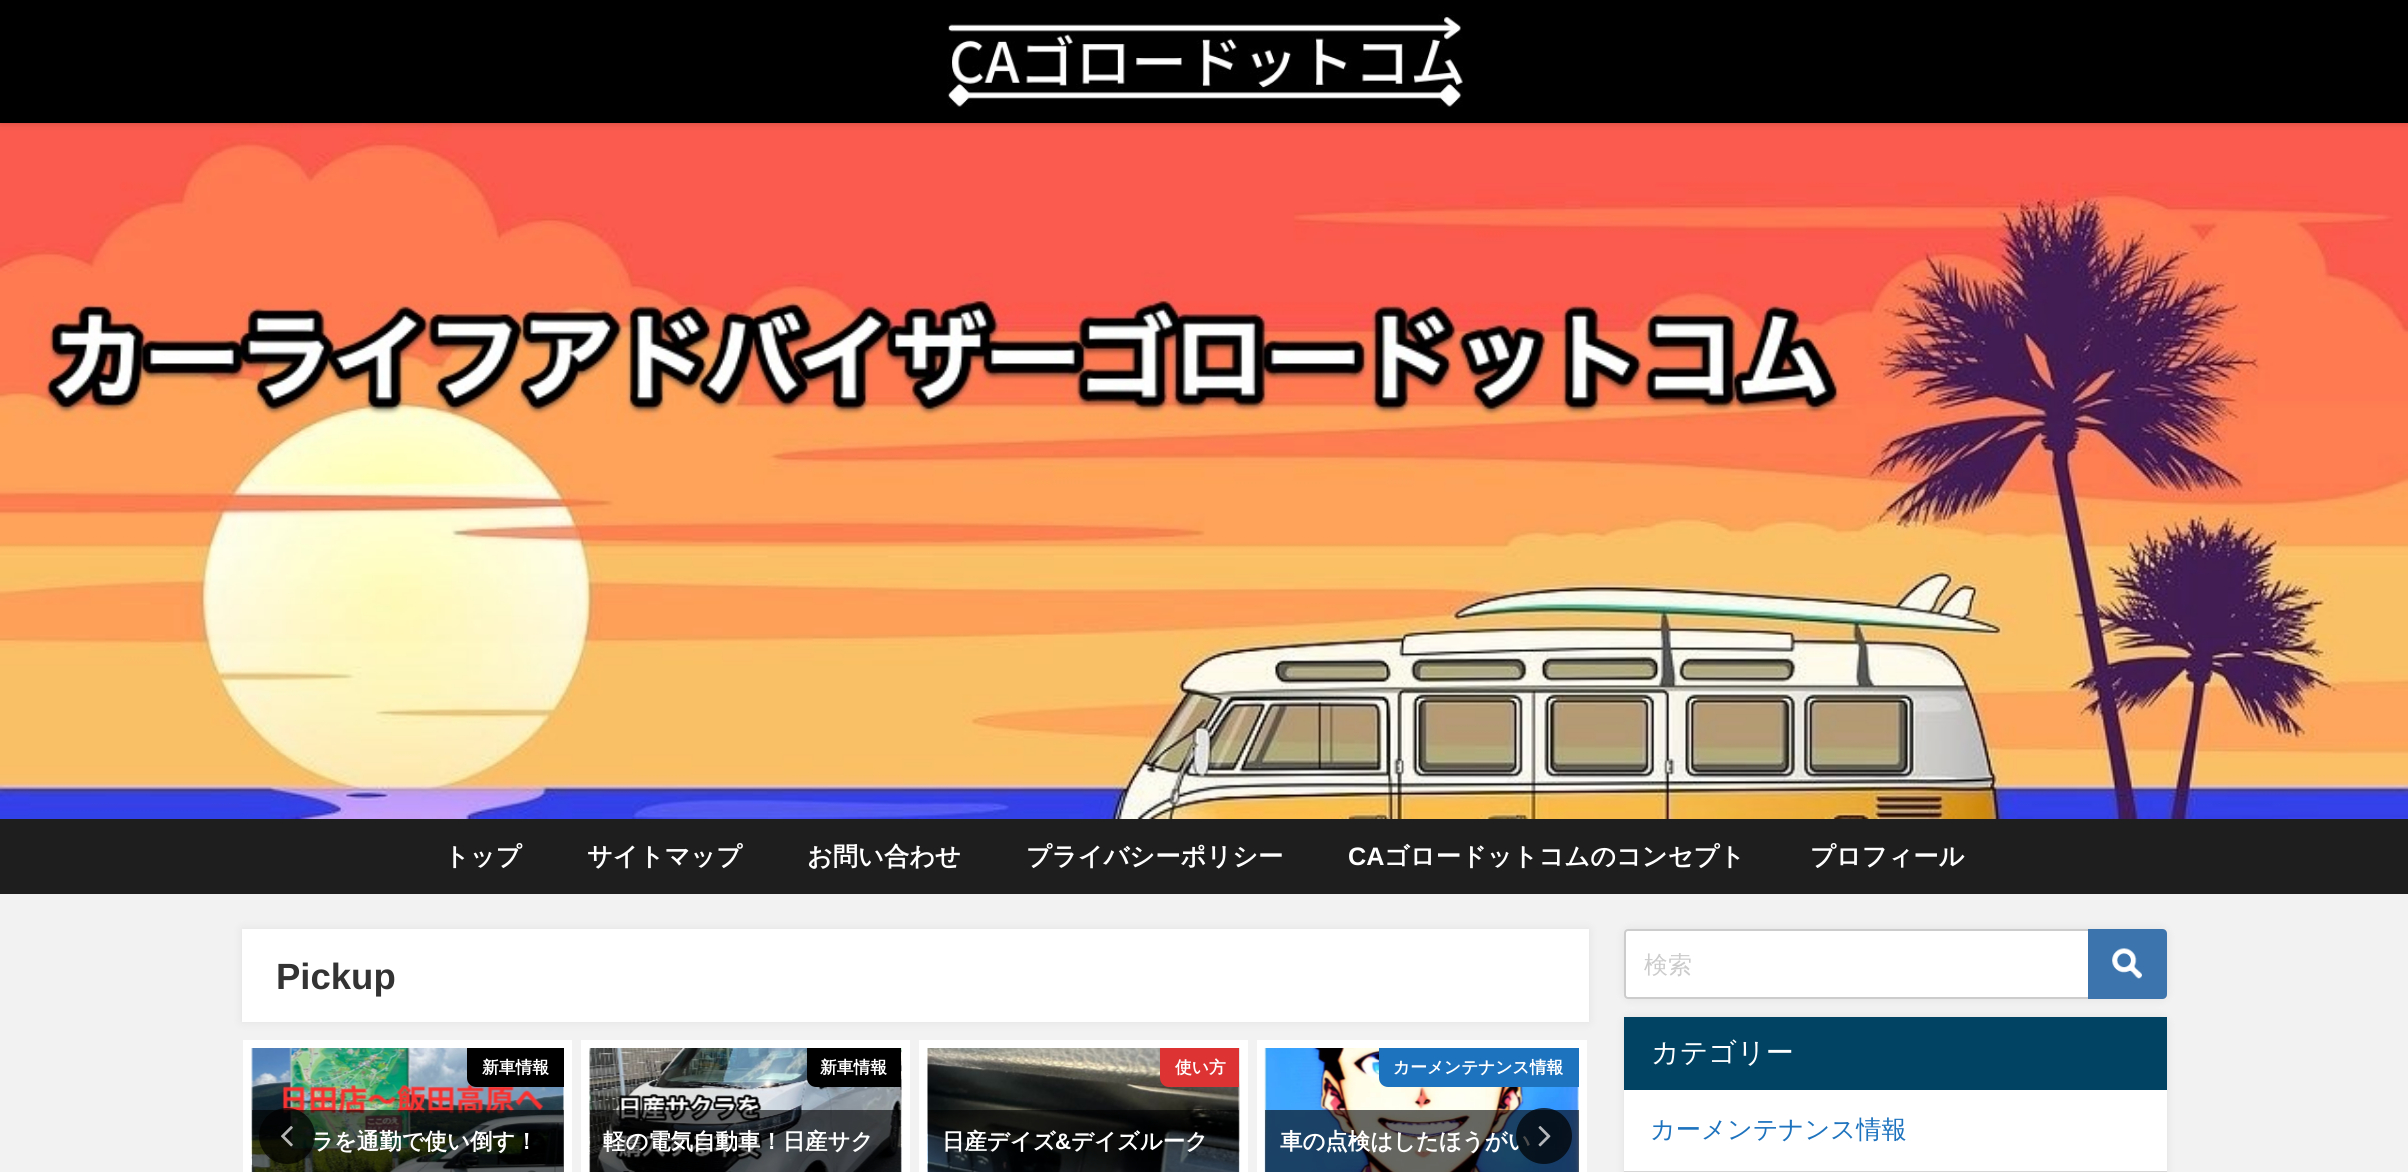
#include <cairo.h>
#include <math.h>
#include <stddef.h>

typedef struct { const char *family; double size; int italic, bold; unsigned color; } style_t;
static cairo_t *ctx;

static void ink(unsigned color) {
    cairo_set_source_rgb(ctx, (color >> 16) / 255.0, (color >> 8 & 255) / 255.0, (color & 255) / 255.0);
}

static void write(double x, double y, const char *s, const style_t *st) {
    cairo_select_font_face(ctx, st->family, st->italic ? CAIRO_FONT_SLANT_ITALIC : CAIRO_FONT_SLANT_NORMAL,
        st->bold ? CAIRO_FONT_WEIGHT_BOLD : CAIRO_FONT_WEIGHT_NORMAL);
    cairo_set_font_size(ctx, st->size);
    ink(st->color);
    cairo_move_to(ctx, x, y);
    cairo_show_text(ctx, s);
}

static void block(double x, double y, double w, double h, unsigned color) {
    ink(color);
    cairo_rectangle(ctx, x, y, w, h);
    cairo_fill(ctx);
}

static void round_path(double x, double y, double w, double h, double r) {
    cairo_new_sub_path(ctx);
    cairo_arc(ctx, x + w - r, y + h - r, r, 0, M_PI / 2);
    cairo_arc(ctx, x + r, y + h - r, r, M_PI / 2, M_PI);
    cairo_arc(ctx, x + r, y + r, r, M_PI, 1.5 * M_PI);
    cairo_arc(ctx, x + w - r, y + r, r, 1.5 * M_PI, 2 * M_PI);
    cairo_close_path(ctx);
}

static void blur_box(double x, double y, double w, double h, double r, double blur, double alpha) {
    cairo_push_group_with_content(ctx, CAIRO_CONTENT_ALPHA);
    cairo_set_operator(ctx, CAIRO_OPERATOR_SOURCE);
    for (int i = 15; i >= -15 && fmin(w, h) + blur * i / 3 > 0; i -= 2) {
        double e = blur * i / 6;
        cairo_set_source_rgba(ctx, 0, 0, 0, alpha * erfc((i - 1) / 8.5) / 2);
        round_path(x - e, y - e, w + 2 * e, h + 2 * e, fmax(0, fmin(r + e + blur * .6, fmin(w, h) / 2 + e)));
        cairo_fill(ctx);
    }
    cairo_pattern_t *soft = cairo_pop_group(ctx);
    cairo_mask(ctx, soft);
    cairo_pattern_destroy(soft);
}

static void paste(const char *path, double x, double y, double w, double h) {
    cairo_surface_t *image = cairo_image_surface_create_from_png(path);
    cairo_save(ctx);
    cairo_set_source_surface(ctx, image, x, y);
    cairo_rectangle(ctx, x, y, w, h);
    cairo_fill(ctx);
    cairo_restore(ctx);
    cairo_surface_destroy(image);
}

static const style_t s1 = {"WenQuanYi Zen Hei", 25.25, 0, 1, 0xffffff};
static const style_t s2 = {"Liberation Sans", 25.25, 0, 1, 0xffffff};
static const style_t s3 = {"Liberation Sans", 36.5, 0, 1, 0x333333};
static const style_t s4 = {"WenQuanYi Zen Hei", 22.4, 0, 1, 0xffffff};
static const style_t s5 = {"WenQuanYi Zen Hei", 16.75, 0, 1, 0xffffff};
static const style_t s6 = {"Liberation Sans", 22.4, 0, 1, 0xffffff};
static const style_t s7 = {"WenQuanYi Zen Hei Medium", 24, 0, 0, 0xcccccc};
static const style_t s8 = {"WenQuanYi Zen Hei Medium", 28, 0, 0, 0xffffff};
static const style_t s9 = {"WenQuanYi Zen Hei Medium", 25.25, 0, 0, 0x1e73be};

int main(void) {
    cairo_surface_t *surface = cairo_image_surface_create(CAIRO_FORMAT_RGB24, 2408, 1172);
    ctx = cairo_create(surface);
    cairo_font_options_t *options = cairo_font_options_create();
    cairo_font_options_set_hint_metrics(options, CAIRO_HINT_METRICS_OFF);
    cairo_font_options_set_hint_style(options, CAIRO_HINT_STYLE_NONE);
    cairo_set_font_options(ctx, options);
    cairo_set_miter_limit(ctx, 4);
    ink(0xf2f2f2);
    cairo_paint(ctx);
    paste("pic2.png", 0, 123, 2408, 696);
    ink(0x000000);
    blur_box(0, 0, 2408, 123, 0, 3.5, 0.2);
    block(0, 0, 2408, 123, 0x000000);
    paste("pic1.png", 947, 14, 516, 93);
    block(0, 819, 2408, 75, 0x1e1e1e);
    write(444, 865, "トップ", &s1);
    write(587, 865, "サイトマップ", &s1);
    write(807, 865, "お問い合わせ", &s1);
    write(1026, 865, "プライバシーポリシー", &s1);
    write(1348, 865, "CA", &s2);
    write(1384, 865, "ゴロードットコムのコンセプト", &s1);
    write(1810, 865, "プロフィール", &s1);
    ink(0x969696);
    blur_box(242, 929, 1347, 93, 0, 4.5, 0.2);
    block(242, 929, 1347, 93, 0xffffff);
    write(276, 989, "Pickup", &s3);
    block(243, 1040, 329, 132, 0xffffff);
    paste("pic4.png", 251, 1048, 313, 124);
    cairo_set_source_rgba(ctx, 0, 0, 0, 0.6);
    cairo_rectangle(ctx, 252, 1110, 312, 62);
    cairo_fill(ctx);
    write(311, 1149, "ラを通勤で使い倒す！", &s4);
    cairo_set_source_rgba(ctx, 0, 0, 0, 0.7);
    cairo_new_path(ctx);
    cairo_arc(ctx, 287, 1136, 28, 0, 2 * M_PI);
    cairo_fill(ctx);
    paste("pic3.png", 281, 1126, 12, 21);
    ink(0x000000);
    cairo_new_path(ctx);
    cairo_move_to(ctx, 467, 1048);
    cairo_line_to(ctx, 564, 1048);
    cairo_line_to(ctx, 564, 1087);
    cairo_line_to(ctx, 476, 1087);
    cairo_curve_to(ctx, 471, 1087, 467, 1083, 467, 1078);
    cairo_close_path(ctx);
    cairo_fill(ctx);
    write(482, 1073, "新車情報", &s5);
    block(581, 1040, 329, 132, 0xffffff);
    paste("pic5.png", 589, 1048, 313, 124);
    ink(0x000000);
    cairo_new_path(ctx);
    cairo_move_to(ctx, 807, 1048);
    cairo_line_to(ctx, 901, 1048);
    cairo_line_to(ctx, 901, 1087);
    cairo_line_to(ctx, 816, 1087);
    cairo_curve_to(ctx, 811, 1087, 807, 1083, 807, 1078);
    cairo_close_path(ctx);
    cairo_fill(ctx);
    write(820, 1073, "新車情報", &s5);
    cairo_set_source_rgba(ctx, 0, 0, 0, 0.6);
    cairo_rectangle(ctx, 590, 1110, 311, 62);
    cairo_fill(ctx);
    write(603, 1149, "軽の電気自動車！日産サク", &s4);
    block(919, 1040, 329, 132, 0xffffff);
    paste("pic6.png", 927, 1048, 313, 124);
    ink(0xdd3333);
    cairo_new_path(ctx);
    cairo_move_to(ctx, 1160, 1048);
    cairo_line_to(ctx, 1239, 1048);
    cairo_line_to(ctx, 1239, 1087);
    cairo_line_to(ctx, 1169, 1087);
    cairo_curve_to(ctx, 1164, 1087, 1160, 1083, 1160, 1078);
    cairo_close_path(ctx);
    cairo_fill(ctx);
    write(1175, 1073, "使い方", &s5);
    cairo_set_source_rgba(ctx, 0, 0, 0, 0.6);
    cairo_rectangle(ctx, 928, 1110, 311, 62);
    cairo_fill(ctx);
    write(942, 1149, "日産デイズ", &s4);
    write(1055, 1149, "&", &s6);
    write(1071, 1149, "デイズルーク", &s4);
    block(1257, 1040, 330, 132, 0xffffff);
    paste("pic7.png", 1264, 1048, 315, 124);
    ink(0x1e73be);
    cairo_new_path(ctx);
    cairo_move_to(ctx, 1379, 1048);
    cairo_line_to(ctx, 1579, 1048);
    cairo_line_to(ctx, 1579, 1087);
    cairo_line_to(ctx, 1388, 1087);
    cairo_curve_to(ctx, 1383, 1087, 1379, 1083, 1379, 1078);
    cairo_close_path(ctx);
    cairo_fill(ctx);
    write(1393, 1073, "カーメンテナンス情報", &s5);
    cairo_set_source_rgba(ctx, 0, 0, 0, 0.6);
    cairo_rectangle(ctx, 1265, 1110, 314, 62);
    cairo_fill(ctx);
    write(1280, 1149, "車の点検はしたほうがい", &s4);
    cairo_set_source_rgba(ctx, 0, 0, 0, 0.7);
    cairo_new_path(ctx);
    cairo_arc(ctx, 1544, 1136, 28, 0, 2 * M_PI);
    cairo_fill(ctx);
    paste("pic8.png", 1538, 1126, 13, 21);
    ink(0x969696);
    blur_box(1624, 929, 543, 70, 7, 4.5, 0.2);
    ink(0xffffff);
    round_path(1625, 930, 541, 68, 3);
    cairo_fill_preserve(ctx);
    ink(0xcccccc);
    cairo_stroke(ctx);
    write(1644, 973, "検索", &s7);
    ink(0x3c74ad);
    cairo_new_path(ctx);
    cairo_move_to(ctx, 2088, 929);
    cairo_line_to(ctx, 2162, 929);
    cairo_curve_to(ctx, 2165, 929, 2167, 931, 2167, 934);
    cairo_line_to(ctx, 2167, 994);
    cairo_curve_to(ctx, 2167, 997, 2165, 999, 2162, 999);
    cairo_line_to(ctx, 2088, 999);
    cairo_close_path(ctx);
    cairo_fill(ctx);
    paste("pic9.png", 2112, 948, 30, 31);
    ink(0x969696);
    blur_box(1624, 1017, 543, 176, 7, 4.5, 0.2);
    block(1624, 1090, 543, 81, 0xffffff);
    block(1624, 1017, 543, 73, 0x004363);
    write(1651, 1062, "カテゴリー", &s8);
    block(1624, 1171, 543, 1, 0xd6d6d6);
    write(1650, 1138, "カーメンテナンス情報", &s9);
    cairo_surface_write_to_png(surface, "screenshot.png");
    cairo_font_options_destroy(options);
    cairo_destroy(ctx);
    cairo_surface_destroy(surface);
    return 0;
}
